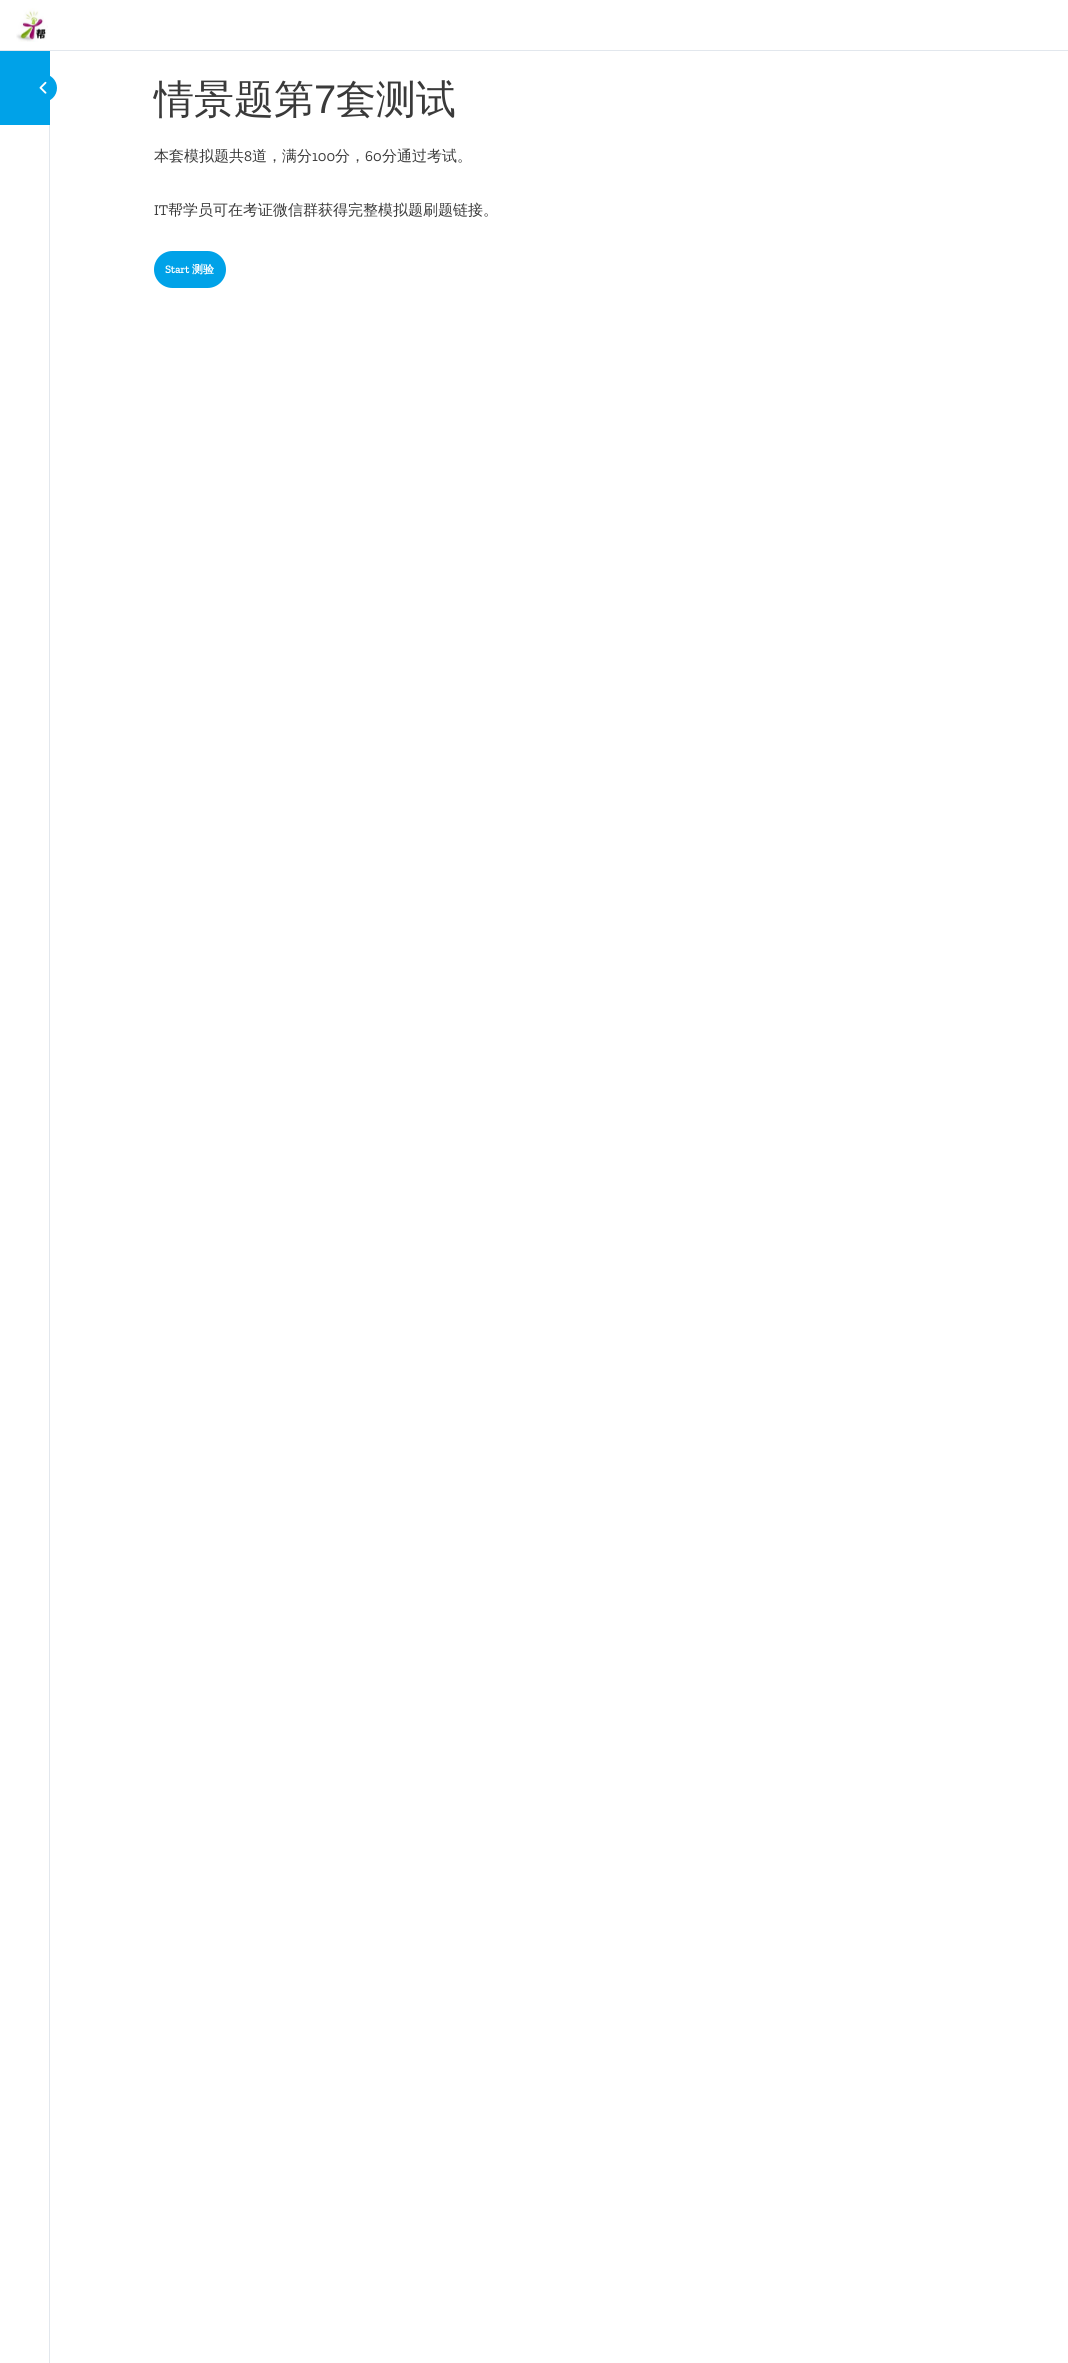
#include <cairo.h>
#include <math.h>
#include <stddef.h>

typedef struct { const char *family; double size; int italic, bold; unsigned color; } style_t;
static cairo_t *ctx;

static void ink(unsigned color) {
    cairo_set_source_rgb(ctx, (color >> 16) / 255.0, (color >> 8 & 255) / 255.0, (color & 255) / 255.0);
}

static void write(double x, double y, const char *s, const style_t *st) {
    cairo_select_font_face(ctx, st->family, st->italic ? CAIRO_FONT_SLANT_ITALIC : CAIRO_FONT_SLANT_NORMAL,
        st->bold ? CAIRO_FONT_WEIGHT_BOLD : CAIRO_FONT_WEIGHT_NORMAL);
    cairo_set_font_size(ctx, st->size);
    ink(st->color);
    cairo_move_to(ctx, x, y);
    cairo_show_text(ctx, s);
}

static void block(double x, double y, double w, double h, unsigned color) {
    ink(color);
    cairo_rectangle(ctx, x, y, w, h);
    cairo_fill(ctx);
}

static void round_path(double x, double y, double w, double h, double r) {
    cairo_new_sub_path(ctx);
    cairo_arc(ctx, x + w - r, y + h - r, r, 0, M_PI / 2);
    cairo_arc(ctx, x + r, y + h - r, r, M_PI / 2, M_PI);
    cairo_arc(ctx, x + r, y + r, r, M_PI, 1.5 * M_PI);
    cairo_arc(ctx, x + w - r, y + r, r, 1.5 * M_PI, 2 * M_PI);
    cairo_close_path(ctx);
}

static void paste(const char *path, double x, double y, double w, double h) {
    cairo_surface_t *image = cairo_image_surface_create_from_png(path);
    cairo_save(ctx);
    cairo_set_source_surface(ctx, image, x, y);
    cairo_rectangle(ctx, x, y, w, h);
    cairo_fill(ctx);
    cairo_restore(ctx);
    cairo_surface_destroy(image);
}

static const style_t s1 = {"WenQuanYi Zen Hei Medium", 40, 0, 0, 0x3a3a3a};
static const style_t s2 = {"Liberation Sans", 40, 0, 0, 0x3a3a3a};
static const style_t s3 = {"WenQuanYi Zen Hei Medium", 15, 0, 0, 0x3a3a3a};
static const style_t s4 = {"Zilla Slab", 15, 0, 0, 0x3a3a3a};
static const style_t s5 = {"Zilla Slab", 11, 0, 1, 0xffffff};
static const style_t s6 = {"WenQuanYi Zen Hei", 11, 0, 1, 0xffffff};

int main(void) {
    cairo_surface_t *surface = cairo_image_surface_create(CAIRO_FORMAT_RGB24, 1068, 2363);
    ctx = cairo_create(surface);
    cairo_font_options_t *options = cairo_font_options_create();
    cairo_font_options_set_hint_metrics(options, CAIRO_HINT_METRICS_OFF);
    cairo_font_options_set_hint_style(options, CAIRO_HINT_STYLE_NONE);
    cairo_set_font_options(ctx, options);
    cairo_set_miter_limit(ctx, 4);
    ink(0xffffff);
    cairo_paint(ctx);
    block(49, 125, 1, 2238, 0xe2e7ed);
    block(0, 51, 50, 74, 0x00a2e8);
    cairo_arc(ctx, 43, 88, 14, 0, 2 * M_PI);
    cairo_fill(ctx);
    paste("pic1.png", 39, 81, 8, 13);
    block(0, 50, 1068, 1, 0xe2e7ed);
    paste("pic2.png", 16, 8, 32, 34);
    write(154, 113, "情景题第", &s1);
    write(314, 113, "7", &s2);
    write(336, 113, "套测试", &s1);
    write(154, 161, "本套模拟题共", &s3);
    write(244, 161, "8", &s4);
    write(252, 161, "道，满分", &s3);
    write(312, 161, "100", &s4);
    write(335, 161, "分，", &s3);
    write(365, 161, "60", &s4);
    write(382, 161, "分通过考试。", &s3);
    write(154, 215, "IT", &s4);
    write(168, 215, "帮学员可在考证微信群获得完整模拟题刷题链接。", &s3);
    ink(0x00a2e8);
    round_path(154, 251, 72, 37, 18.5);
    cairo_fill(ctx);
    write(165, 273, "Start", &s5);
    write(192, 273, "测验", &s6);
    cairo_surface_write_to_png(surface, "screenshot.png");
    cairo_font_options_destroy(options);
    cairo_destroy(ctx);
    cairo_surface_destroy(surface);
    return 0;
}
